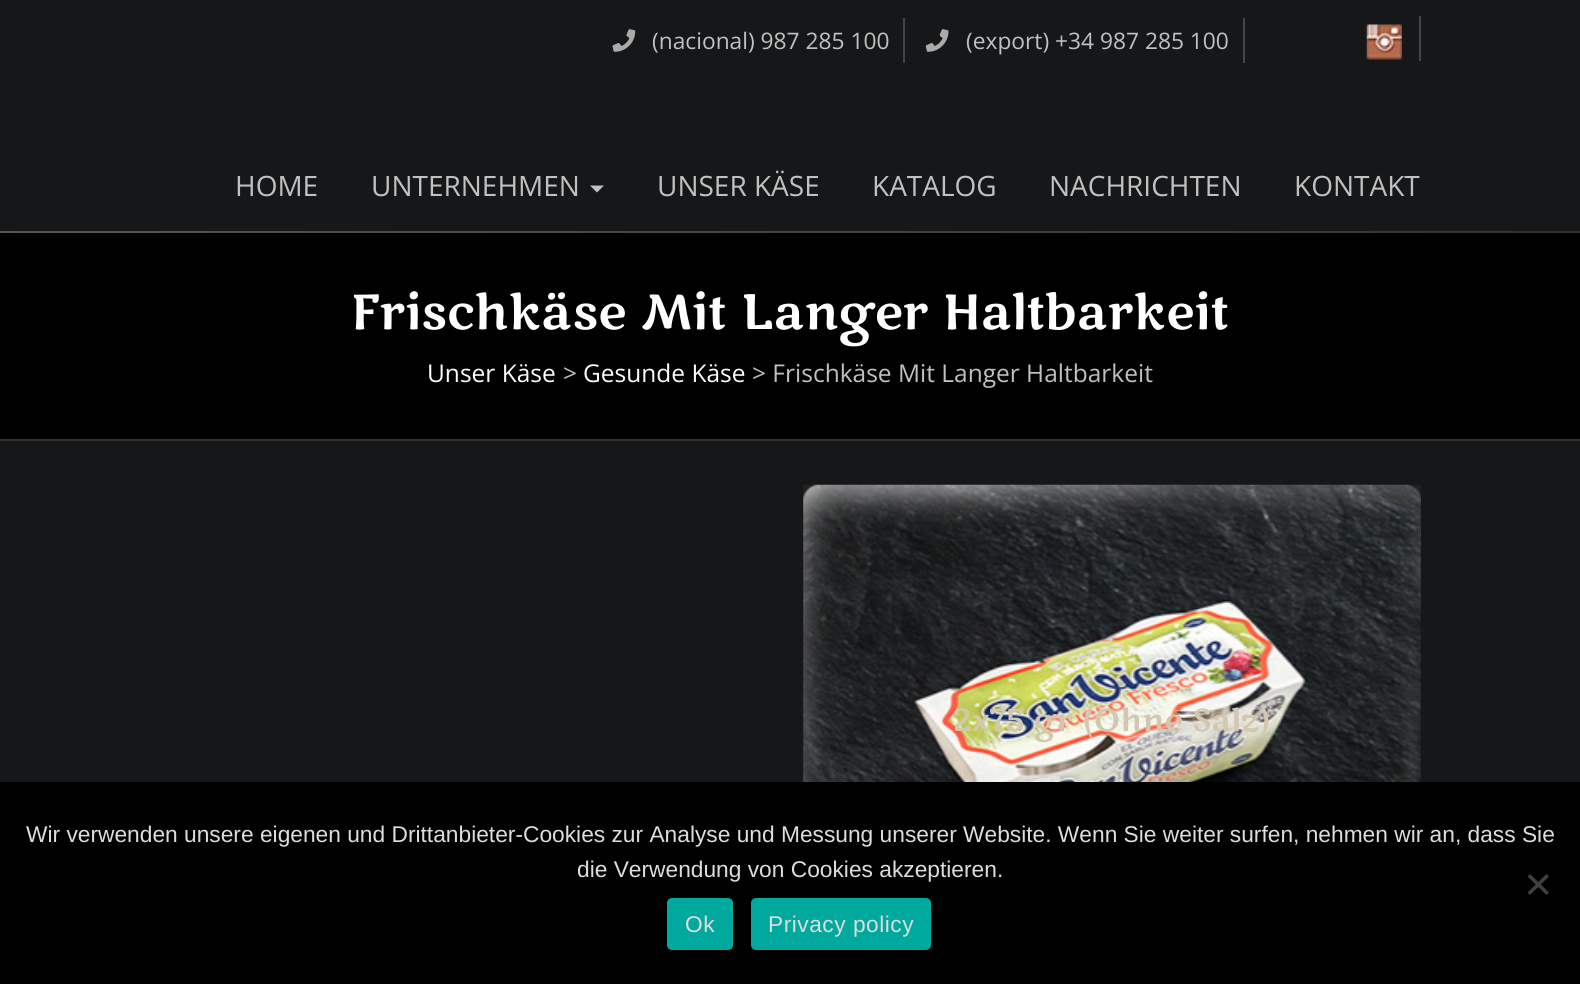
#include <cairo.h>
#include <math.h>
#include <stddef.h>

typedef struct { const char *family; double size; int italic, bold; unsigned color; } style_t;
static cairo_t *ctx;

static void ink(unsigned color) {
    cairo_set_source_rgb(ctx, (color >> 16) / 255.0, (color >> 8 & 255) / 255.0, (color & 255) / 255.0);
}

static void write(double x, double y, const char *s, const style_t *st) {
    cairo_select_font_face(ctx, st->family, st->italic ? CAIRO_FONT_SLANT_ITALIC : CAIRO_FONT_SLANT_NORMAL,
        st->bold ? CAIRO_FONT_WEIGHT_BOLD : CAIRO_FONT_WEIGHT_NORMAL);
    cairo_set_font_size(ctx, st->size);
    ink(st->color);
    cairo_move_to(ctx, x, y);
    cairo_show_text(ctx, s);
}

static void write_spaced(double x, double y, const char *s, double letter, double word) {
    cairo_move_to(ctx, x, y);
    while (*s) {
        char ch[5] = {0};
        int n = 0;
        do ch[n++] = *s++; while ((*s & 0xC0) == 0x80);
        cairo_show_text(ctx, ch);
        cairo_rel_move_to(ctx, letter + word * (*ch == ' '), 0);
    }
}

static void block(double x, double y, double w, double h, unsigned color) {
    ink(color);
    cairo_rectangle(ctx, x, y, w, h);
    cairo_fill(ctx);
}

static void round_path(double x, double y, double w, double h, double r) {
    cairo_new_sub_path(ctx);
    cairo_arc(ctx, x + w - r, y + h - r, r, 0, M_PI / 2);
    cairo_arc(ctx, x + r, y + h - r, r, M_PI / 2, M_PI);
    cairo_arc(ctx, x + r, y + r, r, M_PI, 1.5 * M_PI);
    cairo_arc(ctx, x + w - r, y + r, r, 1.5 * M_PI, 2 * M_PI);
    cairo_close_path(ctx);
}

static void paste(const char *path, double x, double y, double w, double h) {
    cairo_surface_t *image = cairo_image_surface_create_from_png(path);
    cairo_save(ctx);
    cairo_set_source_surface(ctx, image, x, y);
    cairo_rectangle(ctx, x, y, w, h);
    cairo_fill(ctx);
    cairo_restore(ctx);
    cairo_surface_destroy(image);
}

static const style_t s1 = {"Open Sans", 22.75, 0, 0, 0xc1c1c1};
static const style_t s2 = {"Open Sans", 28, 0, 0, 0xc1c1c1};
static const style_t s3 = {"Marko One", 49, 0, 0, 0xffffff};
static const style_t s4 = {"Open Sans", 24.5, 0, 0, 0xffffff};
static const style_t s5 = {"Open Sans", 24.5, 0, 0, 0xc1c1c1};
static const style_t s6 = {"Marko One", 31.5, 0, 0, 0xd3c8af};
static const style_t s7 = {"Liberation Sans", 22.75, 0, 0, 0xdddddd};

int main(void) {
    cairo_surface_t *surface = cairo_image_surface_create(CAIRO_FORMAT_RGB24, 1580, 984);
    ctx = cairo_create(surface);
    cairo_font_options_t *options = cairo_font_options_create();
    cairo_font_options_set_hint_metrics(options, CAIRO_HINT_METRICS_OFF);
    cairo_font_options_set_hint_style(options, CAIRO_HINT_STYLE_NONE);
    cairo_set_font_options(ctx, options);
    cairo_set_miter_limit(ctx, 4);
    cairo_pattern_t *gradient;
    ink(0x151719);
    cairo_paint(ctx);
    block(903, 18, 2, 45, 0x444444);
    paste("pic1.png", 612, 29, 24, 23);
    write(652, 49, "(nacional) 987 285 100", &s1);
    block(1243, 18, 2, 45, 0x444444);
    paste("pic2.png", 925, 29, 24, 23);
    write(966, 49, "(export) +34 987 285 100", &s1);
    block(1419, 16, 2, 45, 0x444444);
    paste("pic3.png", 1366, 24, 36, 36);
    write(235, 196, "HOME", &s2);
    write(371, 196, "UNTERNEHMEN", &s2);
    cairo_new_path(ctx);
    cairo_move_to(ctx, 590, 185.5);
    cairo_line_to(ctx, 604, 185.5);
    cairo_line_to(ctx, 597, 192.5);
    cairo_close_path(ctx);
    cairo_fill(ctx);
    write(657, 196, "UNSER KÄSE", &s2);
    write(872, 196, "KATALOG", &s2);
    write(1049, 196, "NACHRICHTEN", &s2);
    write(1294, 196, "KONTAKT", &s2);
    gradient = cairo_pattern_create_linear(0, 232, 1580, 232);
    cairo_pattern_add_color_stop_rgba(gradient, 0, 0.333, 0.333, 0.333, 1);
    cairo_pattern_add_color_stop_rgba(gradient, 1, 0.2, 0.2, 0.2, 1);
    cairo_set_source(ctx, gradient);
    cairo_pattern_destroy(gradient);
    cairo_rectangle(ctx, 0, 231, 1580, 2);
    cairo_fill(ctx);
    block(0, 233, 1580, 206, 0x000000);
    block(0, 439, 1580, 2, 0x333333);
    write(351, 329, "Frischkäse Mit Langer Haltbarkeit", &s3);
    write(427, 382, "Unser Käse", &s4);
    write(563, 382, ">", &s5);
    write(583, 382, "Gesunde Käse", &s4);
    write(752, 382, "> Frischkäse Mit Langer Haltbarkeit", &s5);
    paste("pic4.png", 803, 484, 618, 298);
    write(952, 731, "2x75 gr (Ohne Salz)", &s6);
    block(0, 782, 1580, 202, 0x000000);
    write(26, 842, "Wir verwenden unsere eigenen und Drittanbieter-Cookies zur Analyse und Messung unserer Website. Wenn Sie weiter surfen, nehmen wir an, dass Sie", &s7);
    write(577, 877, "die Verwendung von Cookies akzeptieren.", &s7);
    ink(0x404040);
    cairo_new_path(ctx);
    cairo_move_to(ctx, 1546.5, 874);
    cairo_line_to(ctx, 1549, 876.5);
    cairo_line_to(ctx, 1530, 895);
    cairo_line_to(ctx, 1527.5, 892.5);
    cairo_close_path(ctx);
    cairo_fill(ctx);
    cairo_new_path(ctx);
    cairo_move_to(ctx, 1527.5, 876.5);
    cairo_line_to(ctx, 1530, 874);
    cairo_line_to(ctx, 1549, 892.5);
    cairo_line_to(ctx, 1546.5, 895);
    cairo_close_path(ctx);
    cairo_fill(ctx);
    ink(0x00a99d);
    round_path(667, 898, 66, 52, 5);
    cairo_fill(ctx);
    ink(0xdddddd);
    write_spaced(685, 932, "Ok", 0.5, 0);
    ink(0x00a99d);
    round_path(751, 898, 180, 52, 5);
    cairo_fill(ctx);
    ink(0xdddddd);
    write_spaced(768, 932, "Privacy policy", 0.5, 0);
    cairo_surface_write_to_png(surface, "screenshot.png");
    cairo_font_options_destroy(options);
    cairo_destroy(ctx);
    cairo_surface_destroy(surface);
    return 0;
}
